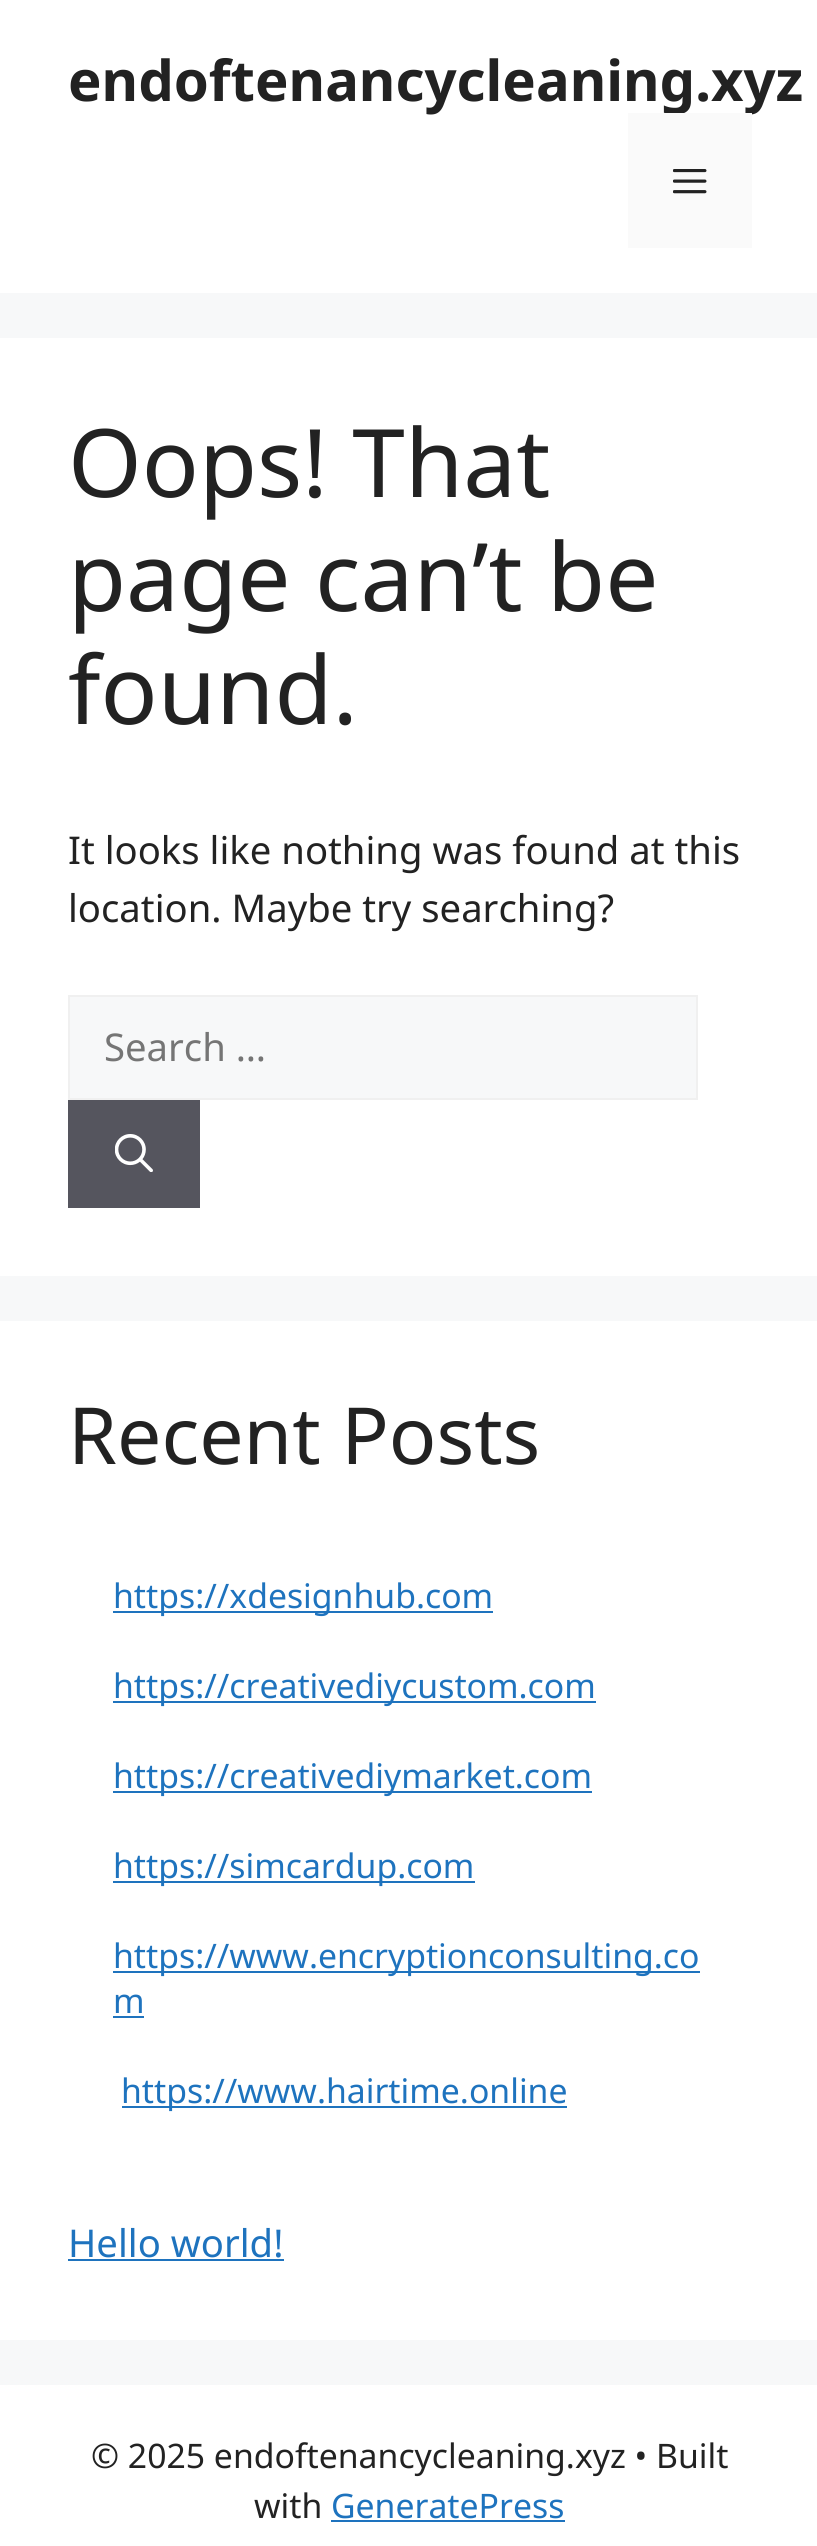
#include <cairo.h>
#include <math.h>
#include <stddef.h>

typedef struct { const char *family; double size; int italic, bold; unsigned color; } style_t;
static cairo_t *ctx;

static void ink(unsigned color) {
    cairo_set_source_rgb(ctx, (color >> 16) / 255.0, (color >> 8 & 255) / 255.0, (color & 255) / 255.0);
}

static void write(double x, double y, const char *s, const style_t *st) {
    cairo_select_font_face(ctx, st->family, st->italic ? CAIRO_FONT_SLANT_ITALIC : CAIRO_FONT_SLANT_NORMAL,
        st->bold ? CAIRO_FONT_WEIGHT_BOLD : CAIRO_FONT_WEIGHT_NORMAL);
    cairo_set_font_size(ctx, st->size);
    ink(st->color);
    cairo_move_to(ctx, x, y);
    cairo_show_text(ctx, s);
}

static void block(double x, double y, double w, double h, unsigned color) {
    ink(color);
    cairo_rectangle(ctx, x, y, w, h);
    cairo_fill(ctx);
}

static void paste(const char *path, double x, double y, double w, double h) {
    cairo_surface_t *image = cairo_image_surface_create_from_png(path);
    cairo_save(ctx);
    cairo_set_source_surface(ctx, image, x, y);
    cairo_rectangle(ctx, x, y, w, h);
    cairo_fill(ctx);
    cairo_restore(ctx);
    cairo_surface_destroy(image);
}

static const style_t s1 = {"Noto Sans", 56.25, 0, 1, 0x222222};
static const style_t s2 = {"Noto Sans", 94.5, 0, 0, 0x222222};
static const style_t s3 = {"Noto Sans", 38.25, 0, 0, 0x222222};
static const style_t s4 = {"Noto Sans", 38.25, 0, 0, 0x757575};
static const style_t s5 = {"Noto Sans", 78.75, 0, 0, 0x222222};
static const style_t s6 = {"Noto Sans", 33.75, 0, 0, 0x1e73be};
static const style_t s7 = {"Noto Sans", 38.25, 0, 0, 0x1e73be};
static const style_t s8 = {"Noto Sans", 33.75, 0, 0, 0x222222};

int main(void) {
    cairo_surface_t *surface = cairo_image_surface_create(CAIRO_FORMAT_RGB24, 817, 2546);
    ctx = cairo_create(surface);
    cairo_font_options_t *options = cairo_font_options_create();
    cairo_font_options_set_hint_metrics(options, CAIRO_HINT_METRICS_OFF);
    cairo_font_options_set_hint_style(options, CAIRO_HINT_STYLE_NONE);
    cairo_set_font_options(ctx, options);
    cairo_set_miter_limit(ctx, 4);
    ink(0xf7f8f9);
    cairo_paint(ctx);
    block(0, 0, 817, 293, 0xffffff);
    write(68, 101, "endoftenancycleaning.xyz", &s1);
    block(628, 113, 124, 135, 0xfafafa);
    paste("pic1.png", 673, 169, 34, 25);
    block(0, 338, 817, 938, 0xffffff);
    write(68, 497, "Oops! That", &s2);
    write(68, 611, "page can’t be", &s2);
    write(68, 724, "found.", &s2);
    write(68, 864, "It looks like nothing was found at this", &s3);
    write(68, 922, "location. Maybe try searching?", &s3);
    ink(0xf7f8f9);
    cairo_rectangle(ctx, 69, 996, 628, 103);
    cairo_fill_preserve(ctx);
    ink(0xf0f0f0);
    cairo_stroke(ctx);
    write(104, 1061, "Search …", &s4);
    block(68, 1100, 132, 108, 0x55555e);
    paste("pic2.png", 115, 1134, 38, 38);
    block(0, 1321, 817, 1019, 0xffffff);
    write(68, 1464, "Recent Posts", &s5);
    block(113, 1611, 380, 2, 0x1e73be);
    write(113, 1608, "https://xdesignhub.com", &s6);
    block(113, 1701, 483, 2, 0x1e73be);
    write(113, 1698, "https://creativediycustom.com", &s6);
    block(113, 1791, 479, 2, 0x1e73be);
    write(113, 1788, "https://creativediymarket.com", &s6);
    block(113, 1881, 362, 2, 0x1e73be);
    write(113, 1878, "https://simcardup.com", &s6);
    block(113, 1971, 587, 2, 0x1e73be);
    write(113, 1968, "https://www.encryptionconsulting.co", &s6);
    write(113, 2013, "m", &s6);
    block(113, 2016, 31, 2, 0x1e73be);
    block(122, 2106, 445, 2, 0x1e73be);
    write(121, 2103, "https://www.hairtime.online", &s6);
    write(68, 2257, "Hello world!", &s7);
    block(68, 2259, 216, 2, 0x1e73be);
    block(0, 2385, 817, 161, 0xffffff);
    write(91, 2468, "© 2025 endoftenancycleaning.xyz • Built", &s8);
    write(254, 2518, "with", &s8);
    write(331, 2518, "GeneratePress", &s6);
    block(331, 2520, 234, 2, 0x1e73be);
    cairo_surface_write_to_png(surface, "screenshot.png");
    cairo_font_options_destroy(options);
    cairo_destroy(ctx);
    cairo_surface_destroy(surface);
    return 0;
}
